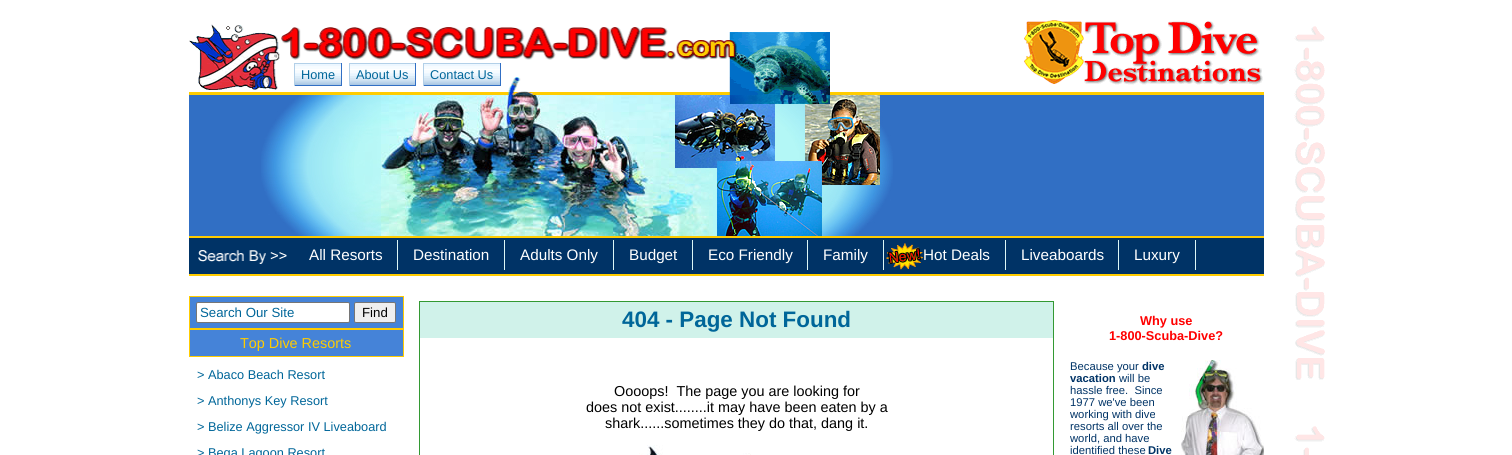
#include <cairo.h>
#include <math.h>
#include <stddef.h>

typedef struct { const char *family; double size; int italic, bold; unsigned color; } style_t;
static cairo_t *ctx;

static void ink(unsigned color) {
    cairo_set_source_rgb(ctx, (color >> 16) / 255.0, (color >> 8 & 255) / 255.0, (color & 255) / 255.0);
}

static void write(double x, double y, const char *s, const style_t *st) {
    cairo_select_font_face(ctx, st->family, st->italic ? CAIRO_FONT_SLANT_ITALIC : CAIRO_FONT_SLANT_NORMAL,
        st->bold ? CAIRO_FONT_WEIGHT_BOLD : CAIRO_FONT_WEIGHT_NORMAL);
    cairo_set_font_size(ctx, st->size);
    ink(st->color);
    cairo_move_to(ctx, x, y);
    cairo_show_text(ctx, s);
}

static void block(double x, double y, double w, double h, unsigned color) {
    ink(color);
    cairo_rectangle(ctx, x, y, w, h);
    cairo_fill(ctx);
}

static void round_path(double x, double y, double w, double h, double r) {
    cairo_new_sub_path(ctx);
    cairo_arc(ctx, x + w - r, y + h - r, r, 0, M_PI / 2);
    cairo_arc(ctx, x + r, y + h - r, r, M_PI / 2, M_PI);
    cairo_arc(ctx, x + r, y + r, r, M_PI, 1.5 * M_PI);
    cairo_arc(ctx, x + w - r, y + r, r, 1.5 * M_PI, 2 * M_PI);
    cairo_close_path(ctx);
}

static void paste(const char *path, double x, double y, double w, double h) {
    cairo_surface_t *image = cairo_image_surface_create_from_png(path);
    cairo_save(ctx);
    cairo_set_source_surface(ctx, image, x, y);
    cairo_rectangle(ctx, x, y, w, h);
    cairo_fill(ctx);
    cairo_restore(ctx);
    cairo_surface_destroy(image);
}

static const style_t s1 = {"Liberation Sans", 12.75, 0, 0, 0x006699};
static const style_t s2 = {"Liberation Sans", 15.25, 0, 0, 0xffffff};
static const style_t s3 = {"Liberation Sans", 13.25, 0, 0, 0x006699};
static const style_t s4 = {"Liberation Sans", 13.25, 0, 0, 0x000000};
static const style_t s5 = {"Liberation Sans", 14.4, 0, 0, 0xffcc00};
static const style_t s6 = {"Liberation Sans", 22.4, 0, 1, 0x006699};
static const style_t s7 = {"Liberation Sans", 14.4, 0, 0, 0x000000};
static const style_t s8 = {"Liberation Sans", 12.75, 0, 1, 0xff0000};
static const style_t s9 = {"Liberation Sans", 11.25, 0, 0, 0x003366};
static const style_t s10 = {"Liberation Sans", 11.25, 0, 1, 0x003366};

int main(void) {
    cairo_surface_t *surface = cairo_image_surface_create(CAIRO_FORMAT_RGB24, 1512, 455);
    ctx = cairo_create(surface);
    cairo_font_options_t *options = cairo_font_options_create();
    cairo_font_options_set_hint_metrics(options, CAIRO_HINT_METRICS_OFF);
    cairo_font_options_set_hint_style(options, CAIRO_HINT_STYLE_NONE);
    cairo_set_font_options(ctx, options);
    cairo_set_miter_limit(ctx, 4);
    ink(0xffffff);
    cairo_paint(ctx);
    paste("pic1.png", 1294, 26, 31, 429);
    paste("pic2.png", 1024, 20, 239, 65);
    block(830, 92, 434, 3, 0xffcc00);
    block(189, 236, 1075, 2, 0xffcc00);
    paste("pic3.png", 189, 24, 641, 71);
    paste("pic4.png", 295, 64, 46, 21);
    paste("pic5.png", 350, 64, 65, 21);
    paste("pic6.png", 424, 64, 76, 21);
    write(301, 79, "Home", &s1);
    block(294, 63, 48, 1, 0xb3d0e8);
    block(341, 63, 1, 23, 0x316fc4);
    block(294, 85, 48, 1, 0x316fc4);
    block(294, 63, 1, 23, 0xb3d0e8);
    write(356, 79, "About Us", &s1);
    block(349, 63, 67, 1, 0xb3d0e8);
    block(415, 63, 1, 23, 0x316fc4);
    block(349, 85, 67, 1, 0x316fc4);
    block(349, 63, 1, 23, 0xb3d0e8);
    write(430, 79, "Contact Us", &s1);
    block(423, 63, 78, 1, 0xb3d0e8);
    block(500, 63, 1, 23, 0x316fc4);
    block(423, 85, 78, 1, 0x316fc4);
    block(423, 63, 1, 23, 0xb3d0e8);
    block(189, 95, 1075, 141, 0x316fc4);
    paste("pic7.png", 261, 95, 632, 141);
    block(189, 238, 1075, 36, 0x003366);
    paste("pic8.png", 198, 250, 89, 14);
    block(189, 274, 1075, 2, 0xffcc00);
    block(397, 240, 1, 30, 0xdcf7f7);
    write(309, 260, "All Resorts", &s2);
    block(504, 240, 1, 30, 0xdcf7f7);
    write(413, 260, "Destination", &s2);
    block(613, 240, 1, 30, 0xdcf7f7);
    write(520, 260, "Adults Only", &s2);
    block(692, 240, 1, 30, 0xdcf7f7);
    write(629, 260, "Budget", &s2);
    block(807, 240, 1, 30, 0xdcf7f7);
    write(708, 260, "Eco Friendly", &s2);
    block(883, 240, 1, 30, 0xdcf7f7);
    write(823, 260, "Family", &s2);
    paste("pic9.png", 886, 243, 37, 27);
    block(1005, 240, 1, 30, 0xdcf7f7);
    write(923, 260, "Hot Deals", &s2);
    block(1118, 240, 1, 30, 0xdcf7f7);
    write(1021, 260, "Liveaboards", &s2);
    block(1195, 240, 1, 30, 0xdcf7f7);
    write(1134, 260, "Luxury", &s2);
    ink(0x4583d8);
    cairo_rectangle(ctx, 189.5, 296.5, 214, 32);
    cairo_fill_preserve(ctx);
    ink(0xffcc00);
    cairo_set_line_width(ctx, 1);
    cairo_stroke(ctx);
    ink(0xffffff);
    round_path(196.5, 302.5, 153, 20, 1.5);
    cairo_fill_preserve(ctx);
    ink(0x767676);
    cairo_stroke(ctx);
    write(200, 317, "Search Our Site", &s3);
    ink(0xefefef);
    round_path(354.5, 302.5, 41, 20, 1.5);
    cairo_fill_preserve(ctx);
    ink(0x767676);
    cairo_stroke(ctx);
    write(362, 317, "Find", &s4);
    ink(0x4583d8);
    cairo_rectangle(ctx, 189.5, 329.5, 214, 27);
    cairo_fill_preserve(ctx);
    ink(0xffcc00);
    cairo_stroke(ctx);
    write(240, 348, "Top Dive Resorts", &s5);
    write(197, 379, "> Abaco Beach Resort", &s1);
    write(197, 405, "> Anthonys Key Resort", &s1);
    write(197, 431, "> Belize Aggressor IV Liveaboard", &s1);
    write(197, 457, "> Beqa Lagoon Resort", &s1);
    cairo_rectangle(ctx, 419.5, 301.5, 634, 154);
    ink(0x339933);
    cairo_stroke(ctx);
    block(420, 302, 633, 36, 0xd0f2ea);
    write(622, 327, "404 - Page Not Found", &s6);
    write(614, 396, "Oooops!  The page you are looking for", &s7);
    write(586, 412, "does not exist........it may have been eaten by a", &s7);
    write(605, 428, "shark......sometimes they do that, dang it.", &s7);
    paste("pic10.png", 639, 445, 112, 10);
    write(1140, 325, "Why use", &s8);
    write(1109, 340, "1-800-Scuba-Dive?", &s8);
    write(1070, 370, "Because your", &s9);
    write(1142, 370, "dive", &s10);
    write(1070, 382, "vacation", &s10);
    write(1119, 382, "will be", &s9);
    write(1070, 394, "hassle free.  Since", &s9);
    write(1070, 406, "1977 we've been", &s9);
    write(1070, 418, "working with dive", &s9);
    write(1070, 430, "resorts all over the", &s9);
    write(1070, 442, "world, and have", &s9);
    write(1070, 454, "identified these", &s9);
    write(1148, 454, "Dive", &s10);
    paste("pic11.png", 1181, 360, 83, 95);
    cairo_surface_write_to_png(surface, "screenshot.png");
    cairo_font_options_destroy(options);
    cairo_destroy(ctx);
    cairo_surface_destroy(surface);
    return 0;
}
